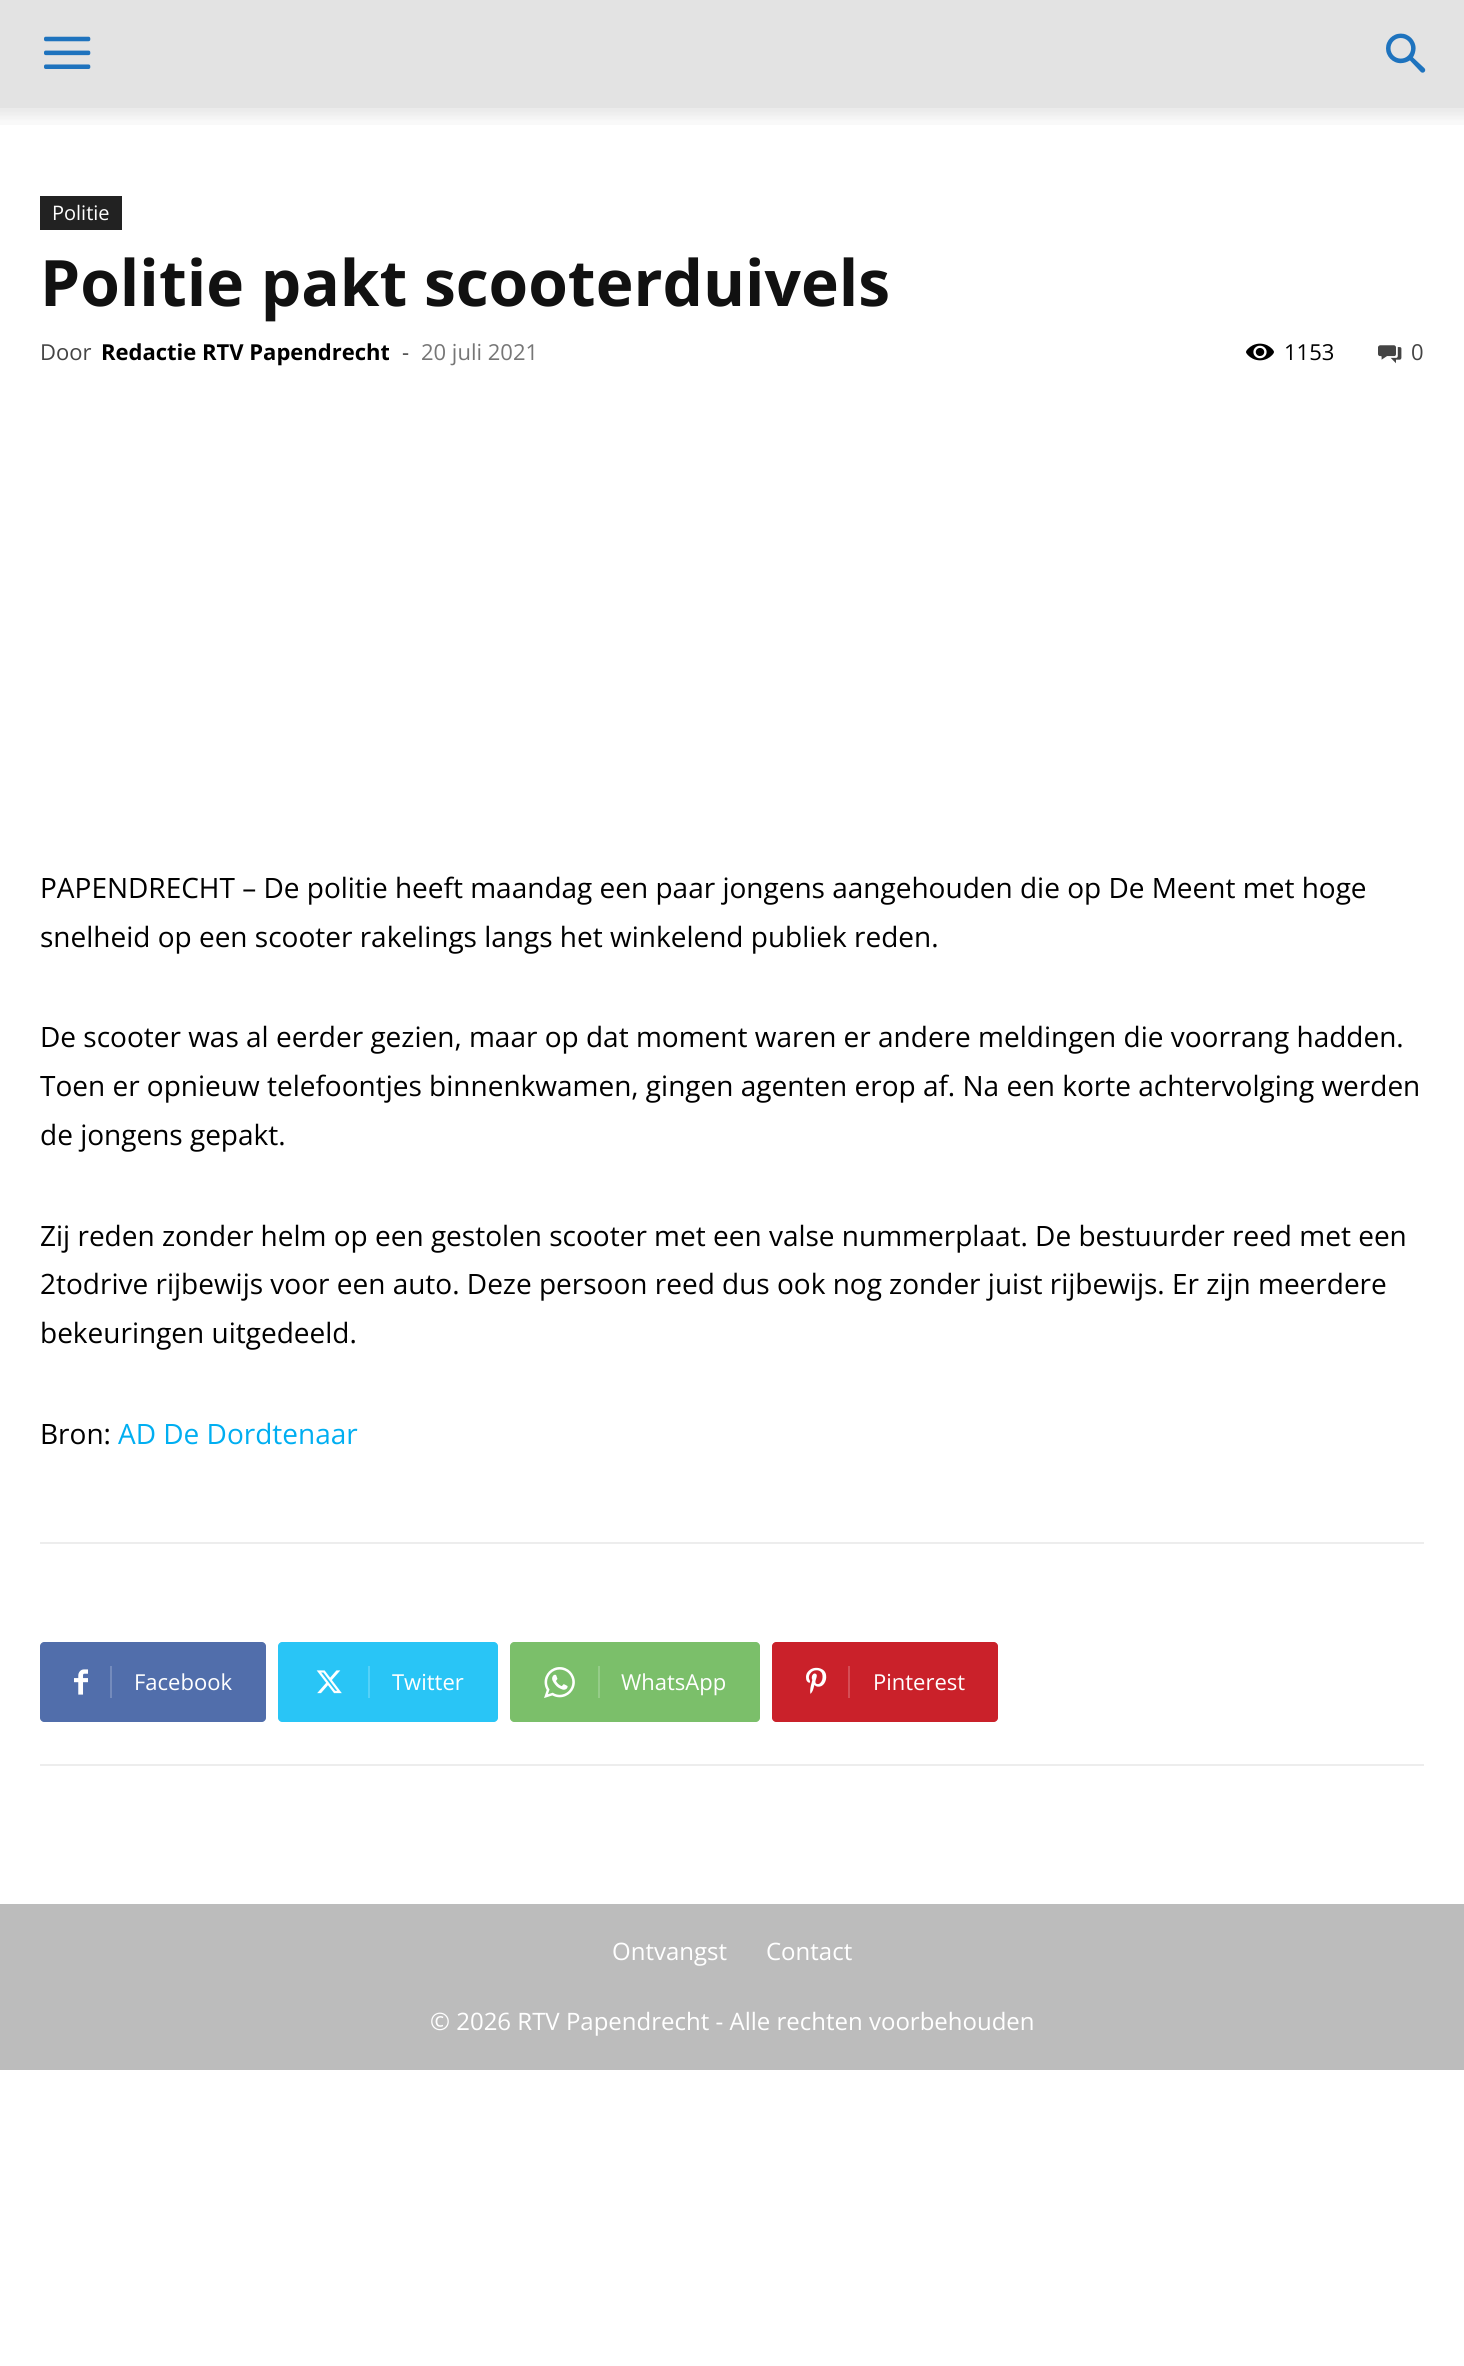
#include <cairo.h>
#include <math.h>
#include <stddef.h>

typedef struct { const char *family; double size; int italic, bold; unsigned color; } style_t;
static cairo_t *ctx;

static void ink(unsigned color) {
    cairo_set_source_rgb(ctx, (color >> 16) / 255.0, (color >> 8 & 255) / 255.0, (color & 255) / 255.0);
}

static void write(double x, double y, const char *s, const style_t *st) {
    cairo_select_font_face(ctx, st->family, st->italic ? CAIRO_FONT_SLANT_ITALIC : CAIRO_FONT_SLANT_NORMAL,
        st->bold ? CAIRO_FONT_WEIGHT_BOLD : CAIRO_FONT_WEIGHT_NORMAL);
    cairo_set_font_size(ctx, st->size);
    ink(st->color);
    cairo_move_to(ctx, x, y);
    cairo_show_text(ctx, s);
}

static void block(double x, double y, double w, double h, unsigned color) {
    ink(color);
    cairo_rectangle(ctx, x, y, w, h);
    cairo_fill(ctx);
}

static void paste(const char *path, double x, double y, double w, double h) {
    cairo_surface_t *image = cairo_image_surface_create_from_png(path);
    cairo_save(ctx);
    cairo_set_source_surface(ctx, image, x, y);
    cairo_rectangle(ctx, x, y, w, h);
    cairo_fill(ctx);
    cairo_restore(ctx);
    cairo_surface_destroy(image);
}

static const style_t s1 = {"Open Sans", 20, 0, 0, 0xffffff};
static const style_t s2 = {"Open Sans", 64, 0, 1, 0x111111};
static const style_t s3 = {"Open Sans", 22, 0, 0, 0x444444};
static const style_t s4 = {"Open Sans", 22, 0, 1, 0x000000};
static const style_t s5 = {"Open Sans", 22, 0, 0, 0x767676};
static const style_t s6 = {"Open Sans", 22, 0, 0, 0x000000};
static const style_t s7 = {"Open Sans", 28, 0, 0, 0x000000};
static const style_t s8 = {"Open Sans", 28, 0, 0, 0x00aef1};
static const style_t s9 = {"Open Sans", 22, 0, 0, 0xffffff};
static const style_t s10 = {"Open Sans", 24, 0, 0, 0xffffff};

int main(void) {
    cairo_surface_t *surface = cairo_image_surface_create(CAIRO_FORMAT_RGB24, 1464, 2366);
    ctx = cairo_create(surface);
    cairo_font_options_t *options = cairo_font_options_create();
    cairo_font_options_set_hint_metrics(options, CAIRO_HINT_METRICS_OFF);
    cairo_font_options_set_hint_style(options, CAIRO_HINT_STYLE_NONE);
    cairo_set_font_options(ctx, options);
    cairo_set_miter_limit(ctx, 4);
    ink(0xffffff);
    cairo_paint(ctx);
    block(0, 0, 1464, 108, 0xe3e3e3);
    paste("pic1.png", 44, 36, 47, 33);
    paste("pic2.png", 1386, 33, 40, 40);
    paste("pic3.png", 0, 108, 1464, 17);
    block(40, 196, 82, 34, 0x222222);
    write(52, 220, "Politie", &s1);
    write(40, 306, "Politie pakt scooterduivels", &s2);
    write(40, 360, "Door", &s3);
    write(101, 360, "Redactie RTV Papendrecht", &s4);
    write(402, 360, "-", &s3);
    write(421, 360, "20 juli 2021", &s5);
    paste("pic4.png", 1246, 343, 28, 18);
    write(1284, 360, "1153", &s6);
    paste("pic5.png", 1378, 345, 24, 19);
    write(1411, 360, "0", &s3);
    write(40, 898, "PAPENDRECHT – De politie heeft maandag een paar jongens aangehouden die op De Meent met hoge", &s7);
    write(40, 947, "snelheid op een scooter rakelings langs het winkelend publiek reden.", &s7);
    write(40, 1047, "De scooter was al eerder gezien, maar op dat moment waren er andere meldingen die voorrang hadden.", &s7);
    write(40, 1096, "Toen er opnieuw telefoontjes binnenkwamen, gingen agenten erop af. Na een korte achtervolging werden", &s7);
    write(40, 1145, "de jongens gepakt.", &s7);
    write(40, 1246, "Zij reden zonder helm op een gestolen scooter met een valse nummerplaat. De bestuurder reed met een", &s7);
    write(40, 1294, "2todrive rijbewijs voor een auto. Deze persoon reed dus ook nog zonder juist rijbewijs. Er zijn meerdere", &s7);
    write(40, 1343, "bekeuringen uitgedeeld.", &s7);
    write(40, 1444, "Bron:", &s7);
    write(118, 1444, "AD De Dordtenaar", &s8);
    block(40, 1542, 1384, 2, 0xededed);
    block(40, 1764, 1384, 2, 0xededed);
    ink(0x516eab);
    cairo_new_path(ctx);
    cairo_move_to(ctx, 110, 1642);
    cairo_line_to(ctx, 262, 1642);
    cairo_curve_to(ctx, 264, 1642, 266, 1644, 266, 1646);
    cairo_line_to(ctx, 266, 1718);
    cairo_curve_to(ctx, 266, 1720, 264, 1722, 262, 1722);
    cairo_line_to(ctx, 110, 1722);
    cairo_close_path(ctx);
    cairo_fill(ctx);
    cairo_new_path(ctx);
    cairo_move_to(ctx, 44, 1642);
    cairo_line_to(ctx, 122, 1642);
    cairo_line_to(ctx, 122, 1722);
    cairo_line_to(ctx, 44, 1722);
    cairo_curve_to(ctx, 42, 1722, 40, 1720, 40, 1718);
    cairo_line_to(ctx, 40, 1646);
    cairo_curve_to(ctx, 40, 1644, 42, 1642, 44, 1642);
    cairo_close_path(ctx);
    cairo_fill(ctx);
    paste("pic6.png", 74, 1669, 14, 26);
    block(110, 1666, 2, 32, 0x748bbc);
    write(134, 1690, "Facebook", &s9);
    ink(0x29c5f6);
    cairo_new_path(ctx);
    cairo_move_to(ctx, 368, 1642);
    cairo_line_to(ctx, 494, 1642);
    cairo_curve_to(ctx, 496, 1642, 498, 1644, 498, 1646);
    cairo_line_to(ctx, 498, 1718);
    cairo_curve_to(ctx, 498, 1720, 496, 1722, 494, 1722);
    cairo_line_to(ctx, 368, 1722);
    cairo_close_path(ctx);
    cairo_fill(ctx);
    cairo_new_path(ctx);
    cairo_move_to(ctx, 282, 1642);
    cairo_line_to(ctx, 380, 1642);
    cairo_line_to(ctx, 380, 1722);
    cairo_line_to(ctx, 282, 1722);
    cairo_curve_to(ctx, 280, 1722, 278, 1720, 278, 1718);
    cairo_line_to(ctx, 278, 1646);
    cairo_curve_to(ctx, 278, 1644, 280, 1642, 282, 1642);
    cairo_close_path(ctx);
    cairo_fill(ctx);
    paste("pic7.png", 316, 1670, 26, 24);
    block(368, 1666, 2, 32, 0x54d1f8);
    write(392, 1690, "Twitter", &s9);
    ink(0x7bbf6a);
    cairo_new_path(ctx);
    cairo_move_to(ctx, 598, 1642);
    cairo_line_to(ctx, 756, 1642);
    cairo_curve_to(ctx, 758, 1642, 760, 1644, 760, 1646);
    cairo_line_to(ctx, 760, 1718);
    cairo_curve_to(ctx, 760, 1720, 758, 1722, 756, 1722);
    cairo_line_to(ctx, 598, 1722);
    cairo_close_path(ctx);
    cairo_fill(ctx);
    cairo_new_path(ctx);
    cairo_move_to(ctx, 514, 1642);
    cairo_line_to(ctx, 610, 1642);
    cairo_line_to(ctx, 610, 1722);
    cairo_line_to(ctx, 514, 1722);
    cairo_curve_to(ctx, 512, 1722, 510, 1720, 510, 1718);
    cairo_line_to(ctx, 510, 1646);
    cairo_curve_to(ctx, 510, 1644, 512, 1642, 514, 1642);
    cairo_close_path(ctx);
    cairo_fill(ctx);
    paste("pic8.png", 544, 1667, 31, 31);
    block(598, 1666, 2, 32, 0x95cc88);
    write(621, 1690, "WhatsApp", &s9);
    ink(0xca212a);
    cairo_new_path(ctx);
    cairo_move_to(ctx, 848, 1642);
    cairo_line_to(ctx, 994, 1642);
    cairo_curve_to(ctx, 996, 1642, 998, 1644, 998, 1646);
    cairo_line_to(ctx, 998, 1718);
    cairo_curve_to(ctx, 998, 1720, 996, 1722, 994, 1722);
    cairo_line_to(ctx, 848, 1722);
    cairo_close_path(ctx);
    cairo_fill(ctx);
    cairo_new_path(ctx);
    cairo_move_to(ctx, 776, 1642);
    cairo_line_to(ctx, 860, 1642);
    cairo_line_to(ctx, 860, 1722);
    cairo_line_to(ctx, 776, 1722);
    cairo_curve_to(ctx, 774, 1722, 772, 1720, 772, 1718);
    cairo_line_to(ctx, 772, 1646);
    cairo_curve_to(ctx, 772, 1644, 774, 1642, 776, 1642);
    cairo_close_path(ctx);
    cairo_fill(ctx);
    paste("pic9.png", 806, 1667, 21, 27);
    block(848, 1666, 2, 32, 0xd54d55);
    write(873, 1690, "Pinterest", &s9);
    block(0, 1904, 1464, 166, 0xbcbcbc);
    write(612, 1960, "Ontvangst", &s10);
    write(766, 1960, "Contact", &s10);
    write(430, 2030, "© 2026 RTV Papendrecht - Alle rechten voorbehouden", &s10);
    cairo_surface_write_to_png(surface, "screenshot.png");
    cairo_font_options_destroy(options);
    cairo_destroy(ctx);
    cairo_surface_destroy(surface);
    return 0;
}
